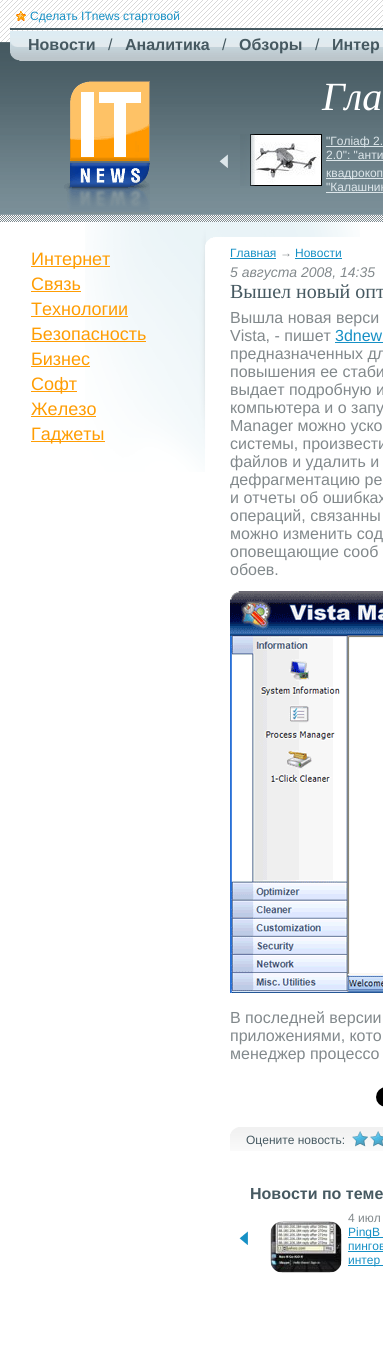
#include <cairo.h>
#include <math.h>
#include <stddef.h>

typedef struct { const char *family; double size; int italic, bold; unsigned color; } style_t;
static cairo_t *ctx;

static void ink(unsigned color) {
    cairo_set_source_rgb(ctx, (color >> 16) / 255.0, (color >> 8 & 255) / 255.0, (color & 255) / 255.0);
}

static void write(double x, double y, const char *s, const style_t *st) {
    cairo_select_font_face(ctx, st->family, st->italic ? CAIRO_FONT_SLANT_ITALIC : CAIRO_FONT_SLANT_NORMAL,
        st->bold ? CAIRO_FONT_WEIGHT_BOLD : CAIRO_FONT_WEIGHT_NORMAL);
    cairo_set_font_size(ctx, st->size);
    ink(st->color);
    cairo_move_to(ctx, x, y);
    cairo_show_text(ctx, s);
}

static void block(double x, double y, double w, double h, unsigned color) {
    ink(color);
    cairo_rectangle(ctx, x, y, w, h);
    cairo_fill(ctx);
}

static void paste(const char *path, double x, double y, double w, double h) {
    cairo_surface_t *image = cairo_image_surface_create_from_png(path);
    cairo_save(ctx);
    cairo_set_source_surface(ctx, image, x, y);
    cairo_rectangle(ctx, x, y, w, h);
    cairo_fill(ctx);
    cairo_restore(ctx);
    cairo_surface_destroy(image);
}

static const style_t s1 = {"Liberation Sans", 12, 0, 0, 0x1690c5};
static const style_t s2 = {"Liberation Sans", 16, 0, 1, 0x465961};
static const style_t s3 = {"Liberation Sans", 16, 0, 0, 0x465961};
static const style_t s4 = {"Liberation Serif", 40, 1, 0, 0xffffff};
static const style_t s5 = {"Liberation Sans", 12, 0, 0, 0xdde6ea};
static const style_t s6 = {"Liberation Sans", 18, 0, 0, 0xff9d03};
static const style_t s7 = {"Liberation Sans", 12, 0, 0, 0x82898c};
static const style_t s8 = {"Liberation Sans", 14, 1, 0, 0x82898c};
static const style_t s9 = {"Liberation Serif", 20, 0, 0, 0x465961};
static const style_t s10 = {"Liberation Sans", 16, 0, 0, 0x82898c};
static const style_t s11 = {"Liberation Sans", 16, 0, 0, 0x1690c5};
static const style_t s12 = {"Liberation Sans", 12, 0, 0, 0x465961};

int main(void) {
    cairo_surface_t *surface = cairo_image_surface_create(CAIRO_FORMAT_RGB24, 383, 1369);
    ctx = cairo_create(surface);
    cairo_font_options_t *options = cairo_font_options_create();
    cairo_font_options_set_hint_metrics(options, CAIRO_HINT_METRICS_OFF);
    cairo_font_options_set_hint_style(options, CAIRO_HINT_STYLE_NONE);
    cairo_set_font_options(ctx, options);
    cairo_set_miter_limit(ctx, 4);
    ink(0xffffff);
    cairo_paint(ctx);
    paste("pic1.png", 0, 0, 383, 214);
    paste("pic2.png", 16, 11, 10, 10);
    write(30, 20, "Сделать ITnews стартовой", &s1);
    paste("pic3.png", 10, 28, 373, 33);
    paste("pic4.png", 10, 41, 10, 20);
    write(28, 50, "Новости", &s2);
    write(108, 50, "/", &s3);
    write(125, 50, "Аналитика", &s2);
    write(222, 50, "/", &s3);
    write(239, 50, "Обзоры", &s2);
    write(315, 50, "/", &s3);
    write(332, 50, "Интер", &s2);
    paste("pic5.png", 64, 81, 86, 133);
    write(322, 110, "Гла", &s4);
    paste("pic6.png", 219, 154, 9, 14);
    paste("pic8.png", 250, 134, 72, 52);
    paste("pic7.png", 240, 134, 15, 52);
    block(326, 146, 57, 1, 0xdde6ea);
    write(326, 145, "\"Голіаф 2.", &s5);
    write(326, 159, "2.0\": \"анти", &s5);
    block(326, 160, 57, 1, 0xdde6ea);
    block(326, 178, 57, 1, 0xdde6ea);
    write(326, 177, "квадрокоп", &s5);
    write(326, 191, "\"Калашник", &s5);
    block(326, 192, 57, 1, 0xdde6ea);
    paste("pic9.png", 0, 214, 383, 8);
    paste("pic10.png", 85, 222, 125, 250);
    block(31, 266, 79, 1, 0xff9d03);
    write(31, 265, "Интернет", &s6);
    write(31, 290, "Связь", &s6);
    block(31, 291, 50, 1, 0xff9d03);
    write(31, 315, "Технологии", &s6);
    block(31, 316, 97, 1, 0xff9d03);
    write(31, 340, "Безопасность", &s6);
    block(31, 341, 115, 1, 0xff9d03);
    write(31, 365, "Бизнес", &s6);
    block(31, 366, 59, 1, 0xff9d03);
    block(31, 391, 46, 1, 0xff9d03);
    write(31, 390, "Софт", &s6);
    write(31, 415, "Железо", &s6);
    block(31, 416, 65, 1, 0xff9d03);
    block(31, 441, 74, 1, 0xff9d03);
    write(31, 440, "Гаджеты", &s6);
    paste("pic11.png", 210, 222, 150, 17);
    write(230, 257, "Главная", &s1);
    block(230, 258, 46, 1, 0x1690c5);
    write(280, 257, "→", &s7);
    write(295, 257, "Новости", &s1);
    block(295, 258, 47, 1, 0x1690c5);
    write(230, 277, "5 августа 2008, 14:35", &s8);
    write(230, 298, "Вышел новый опт", &s9);
    write(230, 323, "Вышла новая верси", &s10);
    write(230, 341, "Vista, - пишет", &s10);
    write(335, 341, "3dnew", &s11);
    block(335, 342, 48, 1, 0x1690c5);
    write(230, 359, "предназначенных дл", &s10);
    write(230, 377, "повышения ее стаби", &s10);
    write(230, 395, "выдает подробную и", &s10);
    write(230, 413, "компьютера и о запу", &s10);
    write(230, 431, "Manager можно уско", &s10);
    write(230, 449, "системы, произвести", &s10);
    write(230, 467, "файлов и удалить и", &s10);
    write(230, 485, "дефрагментацию ре", &s10);
    write(230, 503, "и отчеты об ошибках", &s10);
    write(230, 521, "операций, связанны", &s10);
    write(230, 539, "можно изменить сод", &s10);
    write(230, 557, "оповещающие сооб", &s10);
    write(230, 575, "обоев.", &s10);
    paste("pic12.png", 230, 591, 153, 402);
    write(230, 1023, "В последней версии", &s10);
    write(230, 1041, "приложениями, кото", &s10);
    write(230, 1059, "менеджер процессо", &s10);
    paste("pic13.png", 376, 1087, 7, 20);
    paste("pic14.png", 230, 1127, 153, 24);
    paste("pic15.png", 230, 1127, 8, 7);
    write(246, 1144, "Оцените новость:", &s12);
    paste("pic16.png", 352, 1131, 31, 16);
    write(250, 1199, "Новости по теме", &s2);
    paste("pic17.png", 239, 1231, 9, 14);
    paste("pic20.png", 271, 1222, 70, 50);
    paste("pic19.png", 270, 1221, 72, 52);
    paste("pic18.png", 270, 1224, 5, 46);
    write(348, 1222, "4 июл", &s7);
    block(348, 1237, 35, 1, 0x1690c5);
    write(348, 1236, "PingB", &s1);
    write(348, 1250, "пингов", &s1);
    block(348, 1251, 35, 1, 0x1690c5);
    block(348, 1265, 35, 1, 0x1690c5);
    write(348, 1264, "интер", &s1);
    cairo_surface_write_to_png(surface, "screenshot.png");
    cairo_font_options_destroy(options);
    cairo_destroy(ctx);
    cairo_surface_destroy(surface);
    return 0;
}
